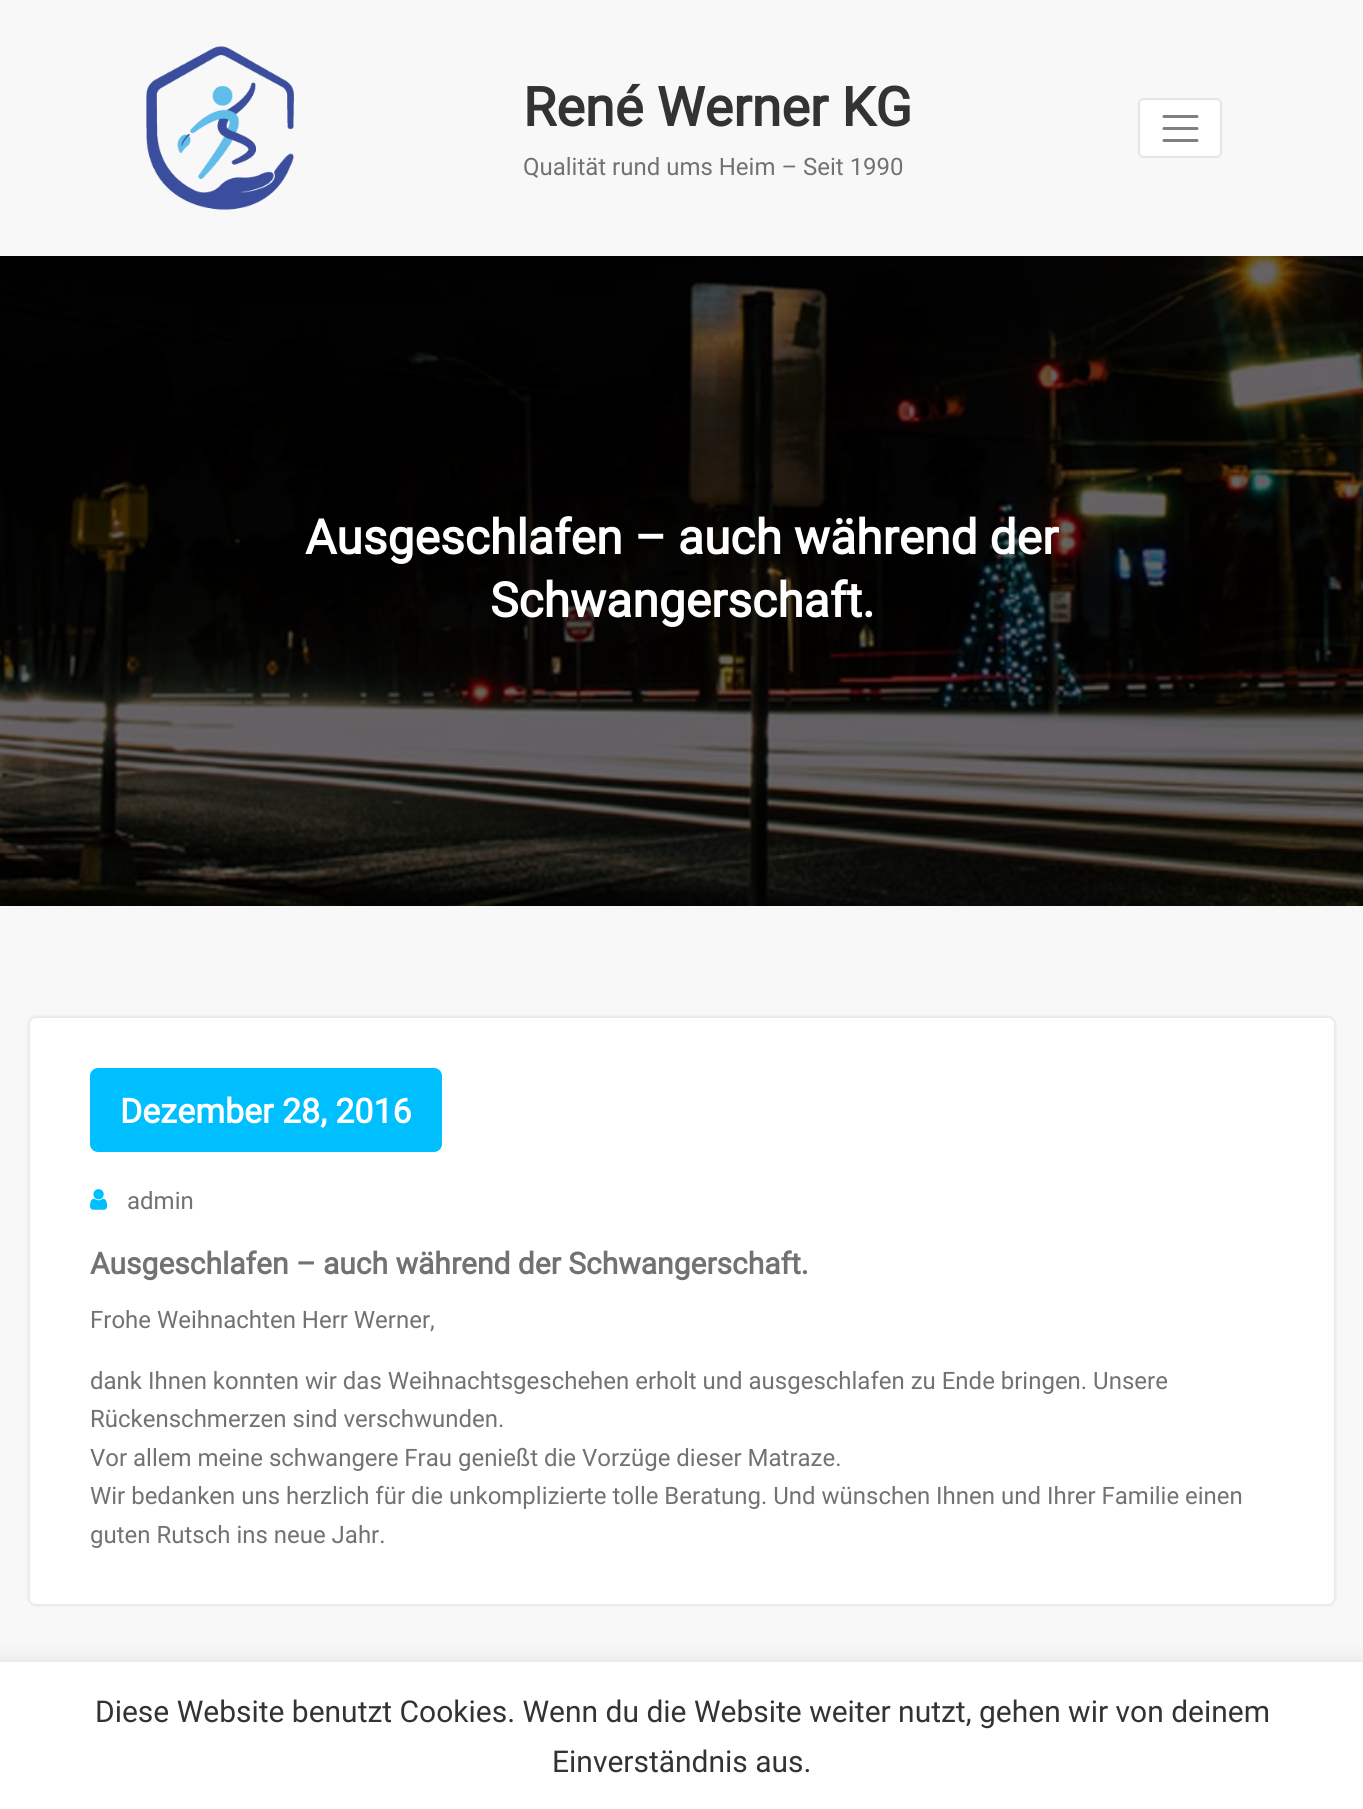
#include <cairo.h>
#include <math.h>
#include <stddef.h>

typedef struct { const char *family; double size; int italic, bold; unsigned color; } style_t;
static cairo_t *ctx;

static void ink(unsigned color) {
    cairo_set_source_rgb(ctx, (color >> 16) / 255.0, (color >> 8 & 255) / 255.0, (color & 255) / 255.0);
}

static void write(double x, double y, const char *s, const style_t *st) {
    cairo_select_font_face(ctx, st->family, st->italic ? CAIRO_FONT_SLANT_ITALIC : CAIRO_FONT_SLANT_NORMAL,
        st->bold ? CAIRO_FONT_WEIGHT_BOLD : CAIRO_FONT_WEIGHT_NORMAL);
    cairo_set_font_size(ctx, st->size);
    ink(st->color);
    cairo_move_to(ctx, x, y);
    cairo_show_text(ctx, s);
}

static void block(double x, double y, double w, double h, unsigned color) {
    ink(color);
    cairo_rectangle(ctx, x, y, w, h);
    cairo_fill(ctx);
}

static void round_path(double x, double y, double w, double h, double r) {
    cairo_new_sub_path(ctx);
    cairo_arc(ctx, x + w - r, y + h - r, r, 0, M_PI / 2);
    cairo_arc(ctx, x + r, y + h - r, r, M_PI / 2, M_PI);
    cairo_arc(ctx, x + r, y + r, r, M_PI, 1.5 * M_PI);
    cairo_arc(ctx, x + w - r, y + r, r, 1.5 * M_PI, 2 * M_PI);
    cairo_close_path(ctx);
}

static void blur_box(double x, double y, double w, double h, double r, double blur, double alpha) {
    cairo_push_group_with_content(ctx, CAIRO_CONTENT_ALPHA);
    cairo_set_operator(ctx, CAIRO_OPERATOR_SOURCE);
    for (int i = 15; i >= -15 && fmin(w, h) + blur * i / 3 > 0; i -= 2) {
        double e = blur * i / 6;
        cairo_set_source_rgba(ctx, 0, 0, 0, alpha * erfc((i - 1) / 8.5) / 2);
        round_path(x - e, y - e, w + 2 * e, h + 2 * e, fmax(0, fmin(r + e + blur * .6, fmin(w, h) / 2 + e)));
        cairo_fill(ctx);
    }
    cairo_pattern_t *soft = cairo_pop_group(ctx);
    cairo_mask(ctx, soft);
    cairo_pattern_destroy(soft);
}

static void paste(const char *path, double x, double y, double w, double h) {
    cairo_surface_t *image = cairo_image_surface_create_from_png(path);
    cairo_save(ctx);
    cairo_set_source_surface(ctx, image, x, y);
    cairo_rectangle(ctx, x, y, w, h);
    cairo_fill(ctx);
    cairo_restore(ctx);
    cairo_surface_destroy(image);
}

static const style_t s1 = {"Roboto", 54, 0, 1, 0x333333};
static const style_t s2 = {"Roboto", 24, 0, 0, 0x727272};
static const style_t s3 = {"Roboto", 48, 0, 1, 0xffffff};
static const style_t s4 = {"Roboto", 34, 0, 1, 0xffffff};
static const style_t s5 = {"Roboto", 30, 0, 1, 0x727272};
static const style_t s6 = {"Roboto", 30, 0, 0, 0x333333};

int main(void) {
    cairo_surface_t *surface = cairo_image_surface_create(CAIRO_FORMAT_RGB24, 1363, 1809);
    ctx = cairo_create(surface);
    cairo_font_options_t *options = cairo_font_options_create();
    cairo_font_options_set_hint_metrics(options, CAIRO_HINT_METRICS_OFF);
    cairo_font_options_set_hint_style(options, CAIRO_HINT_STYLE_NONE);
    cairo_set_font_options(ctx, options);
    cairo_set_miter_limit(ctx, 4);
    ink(0xf8f8f8);
    cairo_paint(ctx);
    paste("pic1.png", 146, 46, 148, 164);
    write(523, 126, "René Werner KG", &s1);
    write(523, 175, "Qualität rund ums Heim – Seit 1990", &s2);
    ink(0xffffff);
    round_path(1139, 99, 82, 58, 5);
    cairo_fill_preserve(ctx);
    ink(0xe5e5e5);
    cairo_stroke(ctx);
    cairo_new_path(ctx);
    cairo_move_to(ctx, 1164, 116.5);
    cairo_line_to(ctx, 1197, 116.5);
    cairo_move_to(ctx, 1164, 128.5);
    cairo_line_to(ctx, 1197, 128.5);
    cairo_move_to(ctx, 1164, 140.5);
    cairo_line_to(ctx, 1197, 140.5);
    ink(0x808080);
    cairo_set_line_width(ctx, 3);
    cairo_set_line_cap(ctx, CAIRO_LINE_CAP_ROUND);
    cairo_stroke(ctx);
    paste("pic2.png", 0, 256, 1363, 650);
    write(305, 554, "Ausgeschlafen – auch während der", &s3);
    write(490, 617, "Schwangerschaft.", &s3);
    ink(0xe8e8e8);
    blur_box(28, 1016, 1308, 590, 8, 1, 1);
    ink(0xffffff);
    round_path(30, 1018, 1304, 586, 6);
    cairo_fill(ctx);
    ink(0x00bfff);
    round_path(90, 1068, 352, 84, 8);
    cairo_fill(ctx);
    write(120, 1123, "Dezember 28, 2016", &s4);
    paste("pic3.png", 90, 1189, 18, 21);
    write(127, 1209, "admin", &s2);
    write(90, 1274, "Ausgeschlafen – auch während der Schwangerschaft.", &s5);
    write(90, 1328, "Frohe Weihnachten Herr Werner,", &s2);
    write(90, 1389, "dank Ihnen konnten wir das Weihnachtsgeschehen erholt und ausgeschlafen zu Ende bringen. Unsere", &s2);
    write(90, 1427, "Rückenschmerzen sind verschwunden.", &s2);
    write(90, 1466, "Vor allem meine schwangere Frau genießt die Vorzüge dieser Matraze.", &s2);
    write(90, 1504, "Wir bedanken uns herzlich für die unkomplizierte tolle Beratung. Und wünschen Ihnen und Ihrer Familie einen", &s2);
    write(90, 1543, "guten Rutsch ins neue Jahr.", &s2);
    ink(0xacabab);
    blur_box(0, 1660, 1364, 148, 0, 10, 0.3);
    block(0, 1662, 1363, 147, 0xffffff);
    write(95, 1722, "Diese Website benutzt Cookies. Wenn du die Website weiter nutzt, gehen wir von deinem", &s6);
    write(552, 1772, "Einverständnis aus.", &s6);
    cairo_surface_write_to_png(surface, "screenshot.png");
    cairo_font_options_destroy(options);
    cairo_destroy(ctx);
    cairo_surface_destroy(surface);
    return 0;
}
